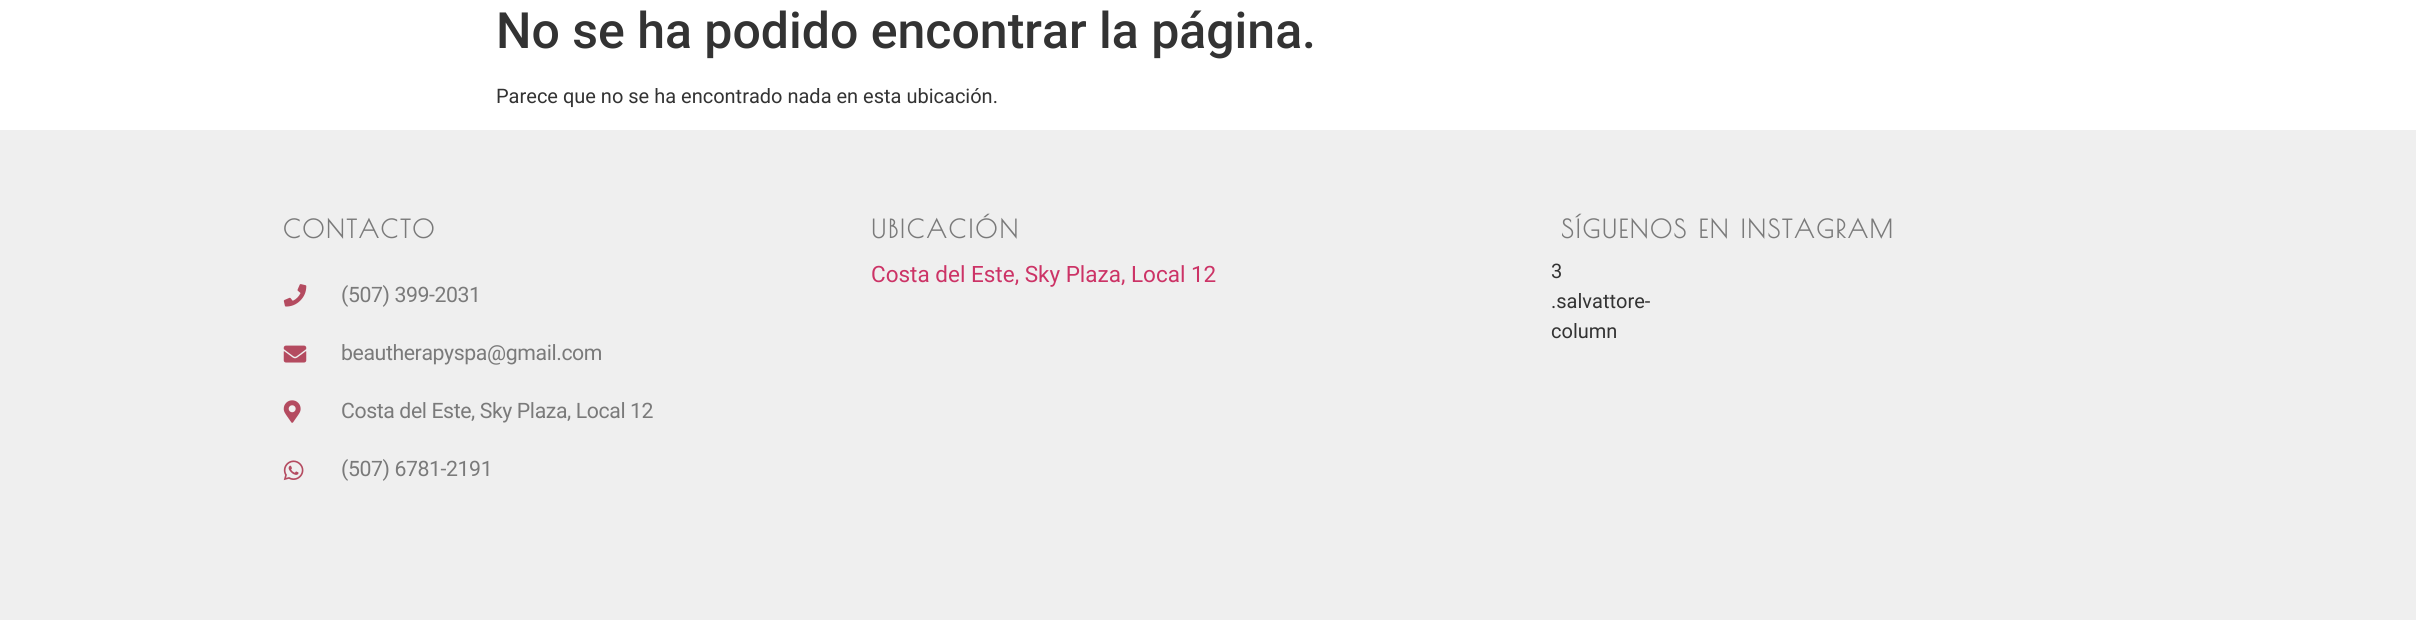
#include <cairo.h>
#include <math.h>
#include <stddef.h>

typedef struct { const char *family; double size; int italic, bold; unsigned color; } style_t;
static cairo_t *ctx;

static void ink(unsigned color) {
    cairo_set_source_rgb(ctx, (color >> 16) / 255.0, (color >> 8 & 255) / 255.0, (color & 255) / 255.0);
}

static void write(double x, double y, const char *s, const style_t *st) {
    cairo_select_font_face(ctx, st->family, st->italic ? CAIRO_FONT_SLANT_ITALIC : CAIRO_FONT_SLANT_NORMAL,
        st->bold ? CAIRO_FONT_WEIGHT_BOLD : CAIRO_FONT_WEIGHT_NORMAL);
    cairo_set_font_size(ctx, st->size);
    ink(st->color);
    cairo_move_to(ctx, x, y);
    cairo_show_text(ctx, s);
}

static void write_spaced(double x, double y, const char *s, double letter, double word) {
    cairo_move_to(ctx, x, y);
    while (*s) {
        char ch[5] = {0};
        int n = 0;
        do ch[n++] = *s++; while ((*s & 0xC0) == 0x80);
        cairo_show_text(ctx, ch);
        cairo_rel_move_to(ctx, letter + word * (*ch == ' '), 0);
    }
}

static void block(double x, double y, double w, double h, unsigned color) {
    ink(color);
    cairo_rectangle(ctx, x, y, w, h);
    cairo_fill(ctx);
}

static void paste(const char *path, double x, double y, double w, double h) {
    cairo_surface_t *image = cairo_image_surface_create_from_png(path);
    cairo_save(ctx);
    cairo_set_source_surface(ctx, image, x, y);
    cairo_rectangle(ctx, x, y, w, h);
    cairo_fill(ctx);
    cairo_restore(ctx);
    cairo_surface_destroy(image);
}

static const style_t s1 = {"Roboto Medium", 50, 0, 0, 0x333333};
static const style_t s2 = {"Roboto", 20, 0, 0, 0x333333};
static const style_t s3 = {"Roboto", 22.5, 0, 0, 0xcc3366};

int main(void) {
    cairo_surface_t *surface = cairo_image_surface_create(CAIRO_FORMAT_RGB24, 2416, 620);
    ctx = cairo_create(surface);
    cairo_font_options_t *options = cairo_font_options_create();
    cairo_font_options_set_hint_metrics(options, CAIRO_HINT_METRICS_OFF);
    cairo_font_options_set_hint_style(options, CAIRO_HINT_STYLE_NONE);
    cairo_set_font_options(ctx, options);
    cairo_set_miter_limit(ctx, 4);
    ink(0xffffff);
    cairo_paint(ctx);
    write(496, 48, "No se ha podido encontrar la página.", &s1);
    write(496, 103, "Parece que no se ha encontrado nada en esta ubicación.", &s2);
    block(0, 130, 2416, 490, 0xefefef);
    cairo_select_font_face(ctx, "Poiret One", CAIRO_FONT_SLANT_NORMAL, CAIRO_FONT_WEIGHT_BOLD);
    cairo_set_font_size(ctx, 25);
    ink(0x7a7a7a);
    write_spaced(283, 238, "CONTACTO", 1.9, 0);
    paste("pic1.png", 283, 284, 24, 23);
    cairo_select_font_face(ctx, "Roboto", CAIRO_FONT_SLANT_NORMAL, CAIRO_FONT_WEIGHT_NORMAL);
    cairo_set_font_size(ctx, 21.25);
    write_spaced(341, 302, "(507) 399-2031", -0.4, 0);
    paste("pic2.png", 283, 345, 24, 18);
    write_spaced(341, 360, "beautherapyspa@gmail.com", -0.4, 0);
    paste("pic3.png", 283, 400, 18, 23);
    write_spaced(341, 418, "Costa del Este, Sky Plaza, Local 12", -0.4, 0);
    paste("pic4.png", 283, 460, 21, 21);
    write_spaced(341, 476, "(507) 6781-2191", -0.4, 0);
    cairo_select_font_face(ctx, "Poiret One", CAIRO_FONT_SLANT_NORMAL, CAIRO_FONT_WEIGHT_BOLD);
    cairo_set_font_size(ctx, 25);
    write_spaced(871, 238, "UBICACIÓN", 2.1, 0);
    write(871, 282, "Costa del Este, Sky Plaza, Local 12", &s3);
    cairo_select_font_face(ctx, "Poiret One", CAIRO_FONT_SLANT_NORMAL, CAIRO_FONT_WEIGHT_BOLD);
    cairo_set_font_size(ctx, 25);
    ink(0x7a7a7a);
    write_spaced(1561, 238, "SÍGUENOS EN INSTAGRAM", 1.9, 0);
    write(1551, 278, "3", &s2);
    write(1551, 308, ".salvattore-", &s2);
    write(1551, 338, "column", &s2);
    cairo_surface_write_to_png(surface, "screenshot.png");
    cairo_font_options_destroy(options);
    cairo_destroy(ctx);
    cairo_surface_destroy(surface);
    return 0;
}
